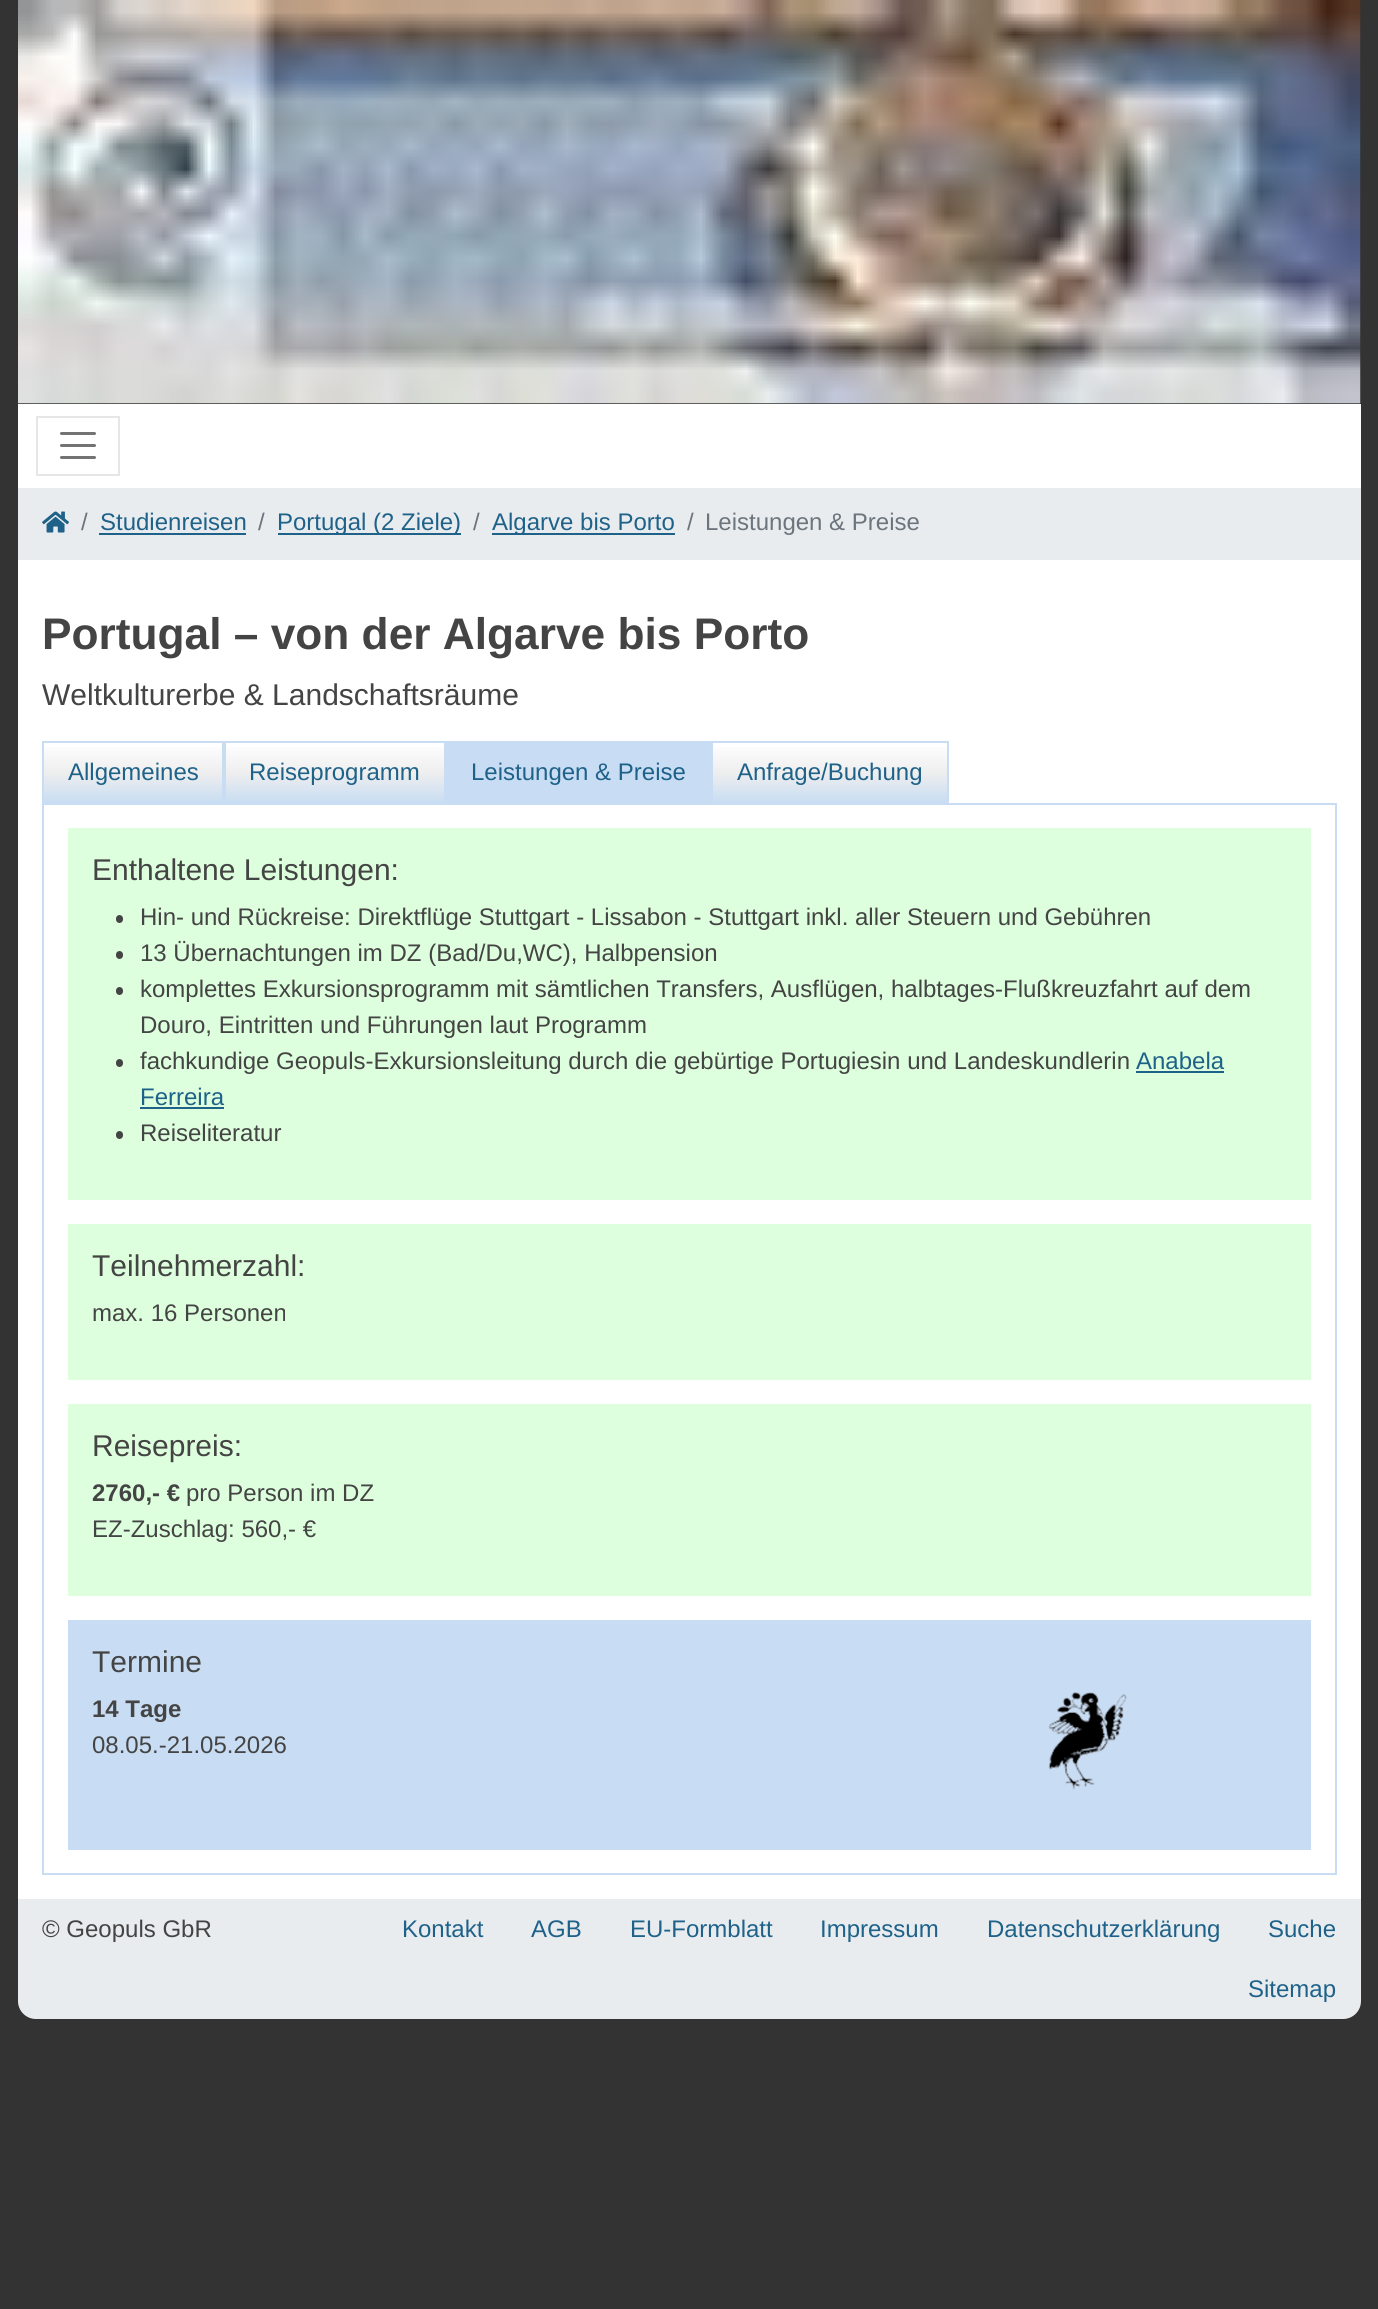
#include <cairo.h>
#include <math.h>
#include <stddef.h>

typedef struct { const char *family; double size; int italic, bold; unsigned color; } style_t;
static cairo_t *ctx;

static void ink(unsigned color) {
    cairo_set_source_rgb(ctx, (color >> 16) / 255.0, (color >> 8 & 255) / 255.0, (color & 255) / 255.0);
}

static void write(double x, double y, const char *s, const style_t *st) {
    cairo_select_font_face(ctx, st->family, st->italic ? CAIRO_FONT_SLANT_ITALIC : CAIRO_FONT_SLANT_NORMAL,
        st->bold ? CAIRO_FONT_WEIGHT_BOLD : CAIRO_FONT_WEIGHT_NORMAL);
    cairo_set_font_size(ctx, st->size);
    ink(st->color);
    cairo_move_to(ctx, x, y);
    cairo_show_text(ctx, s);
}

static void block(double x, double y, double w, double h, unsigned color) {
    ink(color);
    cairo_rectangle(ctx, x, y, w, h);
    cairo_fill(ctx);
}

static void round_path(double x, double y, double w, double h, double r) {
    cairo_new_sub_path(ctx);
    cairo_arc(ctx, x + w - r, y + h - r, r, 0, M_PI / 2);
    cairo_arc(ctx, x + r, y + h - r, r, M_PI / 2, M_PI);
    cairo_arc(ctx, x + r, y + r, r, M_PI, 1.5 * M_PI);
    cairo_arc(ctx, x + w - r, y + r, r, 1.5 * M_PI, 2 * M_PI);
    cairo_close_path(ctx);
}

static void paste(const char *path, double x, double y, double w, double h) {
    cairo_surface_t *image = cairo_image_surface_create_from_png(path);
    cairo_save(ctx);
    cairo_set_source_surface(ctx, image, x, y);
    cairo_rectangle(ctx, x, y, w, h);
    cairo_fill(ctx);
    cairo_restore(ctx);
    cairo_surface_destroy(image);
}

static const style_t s1 = {"Liberation Sans", 24, 0, 0, 0x6c757d};
static const style_t s2 = {"Liberation Sans", 24, 0, 0, 0x1e6289};
static const style_t s3 = {"Liberation Sans", 44.25, 0, 1, 0x444444};
static const style_t s4 = {"Liberation Sans", 30, 0, 0, 0x444444};
static const style_t s5 = {"Liberation Sans", 24, 0, 0, 0x444444};
static const style_t s6 = {"Liberation Sans", 24, 0, 1, 0x444444};

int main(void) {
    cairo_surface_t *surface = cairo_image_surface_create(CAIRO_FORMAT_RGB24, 1378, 2309);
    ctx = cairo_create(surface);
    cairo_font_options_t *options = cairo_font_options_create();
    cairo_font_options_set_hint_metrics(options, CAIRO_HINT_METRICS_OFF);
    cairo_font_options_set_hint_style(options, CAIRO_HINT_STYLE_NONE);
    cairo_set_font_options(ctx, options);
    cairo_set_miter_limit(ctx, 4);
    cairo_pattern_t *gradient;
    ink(0x333333);
    cairo_paint(ctx);
    paste("pic1.png", 18, 0, 1343, 404);
    block(18, 404, 1343, 84, 0xffffff);
    cairo_rectangle(ctx, 37, 417, 82, 58);
    ink(0xe6e6e6);
    cairo_stroke(ctx);
    cairo_new_path(ctx);
    cairo_move_to(ctx, 61.5, 433.5);
    cairo_line_to(ctx, 94.5, 433.5);
    cairo_move_to(ctx, 61.5, 445.5);
    cairo_line_to(ctx, 94.5, 445.5);
    cairo_move_to(ctx, 61.5, 457.5);
    cairo_line_to(ctx, 94.5, 457.5);
    ink(0x737373);
    cairo_set_line_width(ctx, 3);
    cairo_set_line_cap(ctx, CAIRO_LINE_CAP_ROUND);
    cairo_stroke(ctx);
    block(18, 488, 1343, 72, 0xe9ecef);
    paste("pic2.png", 42, 511, 27, 22);
    write(81, 530, "/", &s1);
    write(100, 530, "Studienreisen", &s2);
    block(99, 533, 147, 2, 0x1e6289);
    write(258, 530, "/", &s1);
    block(278, 533, 183, 2, 0x1e6289);
    write(277, 530, "Portugal (2 Ziele)", &s2);
    write(473, 530, "/", &s1);
    block(492, 533, 183, 2, 0x1e6289);
    write(492, 530, "Algarve bis Porto", &s2);
    write(687, 530, "/", &s1);
    write(705, 530, "Leistungen & Preise", &s1);
    block(18, 560, 1343, 1339, 0xffffff);
    write(42, 649, "Portugal – von der Algarve bis Porto", &s3);
    write(42, 705, "Weltkulturerbe & Landschaftsräume", &s4);
    gradient = cairo_pattern_create_linear(133, 743, 133, 803);
    cairo_pattern_add_color_stop_rgba(gradient, 0, 1, 1, 1, 1);
    cairo_pattern_add_color_stop_rgba(gradient, 0.5, 0.933, 0.933, 0.933, 1);
    cairo_pattern_add_color_stop_rgba(gradient, 1, 0.784, 0.867, 0.953, 1);
    cairo_set_source(ctx, gradient);
    cairo_pattern_destroy(gradient);
    cairo_rectangle(ctx, 44, 747, 178, 56);
    cairo_fill(ctx);
    block(42, 741, 404, 2, 0xc8ddf3);
    block(222, 741, 4, 62, 0xc8ddf3);
    block(42, 741, 2, 62, 0xc8ddf3);
    write(68, 780, "Allgemeines", &s2);
    gradient = cairo_pattern_create_linear(335, 743, 335, 803);
    cairo_pattern_add_color_stop_rgba(gradient, 0, 1, 1, 1, 1);
    cairo_pattern_add_color_stop_rgba(gradient, 0.5, 0.933, 0.933, 0.933, 1);
    cairo_pattern_add_color_stop_rgba(gradient, 1, 0.784, 0.867, 0.953, 1);
    cairo_set_source(ctx, gradient);
    cairo_pattern_destroy(gradient);
    cairo_rectangle(ctx, 226, 747, 218, 56);
    cairo_fill(ctx);
    block(444, 741, 267, 62, 0xc8ddf3);
    write(249, 780, "Reiseprogramm", &s2);
    write(471, 780, "Leistungen & Preise", &s2);
    gradient = cairo_pattern_create_linear(830, 743, 830, 803);
    cairo_pattern_add_color_stop_rgba(gradient, 0, 1, 1, 1, 1);
    cairo_pattern_add_color_stop_rgba(gradient, 0.5, 0.933, 0.933, 0.933, 1);
    cairo_pattern_add_color_stop_rgba(gradient, 1, 0.784, 0.867, 0.953, 1);
    cairo_set_source(ctx, gradient);
    cairo_pattern_destroy(gradient);
    cairo_rectangle(ctx, 713, 747, 234, 56);
    cairo_fill(ctx);
    block(711, 741, 237, 2, 0xc8ddf3);
    block(947, 741, 2, 62, 0xc8ddf3);
    block(711, 741, 2, 62, 0xc8ddf3);
    write(737, 780, "Anfrage/Buchung", &s2);
    cairo_rectangle(ctx, 43, 804, 1293, 1070);
    ink(0xc8ddf3);
    cairo_set_line_width(ctx, 2);
    cairo_set_line_cap(ctx, CAIRO_LINE_CAP_BUTT);
    cairo_stroke(ctx);
    block(68, 828, 1243, 372, 0xddffdd);
    write(92, 880, "Enthaltene Leistungen:", &s4);
    round_path(116, 915, 7, 8, 3.5);
    cairo_fill(ctx);
    write(140, 925, "Hin- und Rückreise: Direktflüge Stuttgart - Lissabon - Stuttgart inkl. aller Steuern und Gebühren", &s5);
    round_path(116, 951, 7, 8, 3.5);
    cairo_fill(ctx);
    write(140, 961, "13 Übernachtungen im DZ (Bad/Du,WC), Halbpension", &s5);
    round_path(116, 987, 7, 8, 3.5);
    cairo_fill(ctx);
    write(140, 997, "komplettes Exkursionsprogramm mit sämtlichen Transfers, Ausflügen, halbtages-Flußkreuzfahrt auf dem", &s5);
    write(140, 1033, "Douro, Eintritten und Führungen laut Programm", &s5);
    round_path(116, 1059, 7, 8, 3.5);
    cairo_fill(ctx);
    write(140, 1069, "fachkundige Geopuls-Exkursionsleitung durch die gebürtige Portugiesin und Landeskundlerin", &s5);
    write(1136, 1069, "Anabela", &s2);
    block(1136, 1071, 88, 2, 0x1e6289);
    write(140, 1105, "Ferreira", &s2);
    block(140, 1107, 84, 2, 0x1e6289);
    ink(0x444444);
    round_path(116, 1131, 7, 8, 3.5);
    cairo_fill(ctx);
    write(140, 1141, "Reiseliteratur", &s5);
    block(68, 1224, 1243, 156, 0xddffdd);
    write(92, 1276, "Teilnehmerzahl:", &s4);
    write(92, 1321, "max. 16 Personen", &s5);
    block(68, 1404, 1243, 192, 0xddffdd);
    write(92, 1456, "Reisepreis:", &s4);
    write(92, 1501, "2760,- €", &s6);
    write(186, 1501, "pro Person im DZ", &s5);
    write(92, 1537, "EZ-Zuschlag: 560,- €", &s5);
    block(68, 1620, 1243, 230, 0xc8ddf3);
    write(92, 1672, "Termine", &s4);
    write(92, 1717, "14 Tage", &s6);
    write(92, 1753, "08.05.-21.05.2026", &s5);
    paste("pic3.png", 1048, 1692, 79, 98);
    ink(0xe9ecef);
    cairo_new_path(ctx);
    cairo_move_to(ctx, 18, 1899);
    cairo_line_to(ctx, 1361, 1899);
    cairo_line_to(ctx, 1361, 2001);
    cairo_curve_to(ctx, 1361, 2011, 1353, 2019, 1343, 2019);
    cairo_line_to(ctx, 36, 2019);
    cairo_curve_to(ctx, 26, 2019, 18, 2011, 18, 2001);
    cairo_close_path(ctx);
    cairo_fill(ctx);
    write(42, 1937, "© Geopuls GbR", &s5);
    write(402, 1937, "Kontakt", &s2);
    write(531, 1937, "AGB", &s2);
    write(630, 1937, "EU-Formblatt", &s2);
    write(820, 1937, "Impressum", &s2);
    write(987, 1937, "Datenschutzerklärung", &s2);
    write(1268, 1937, "Suche", &s2);
    write(1248, 1997, "Sitemap", &s2);
    cairo_surface_write_to_png(surface, "screenshot.png");
    cairo_font_options_destroy(options);
    cairo_destroy(ctx);
    cairo_surface_destroy(surface);
    return 0;
}
